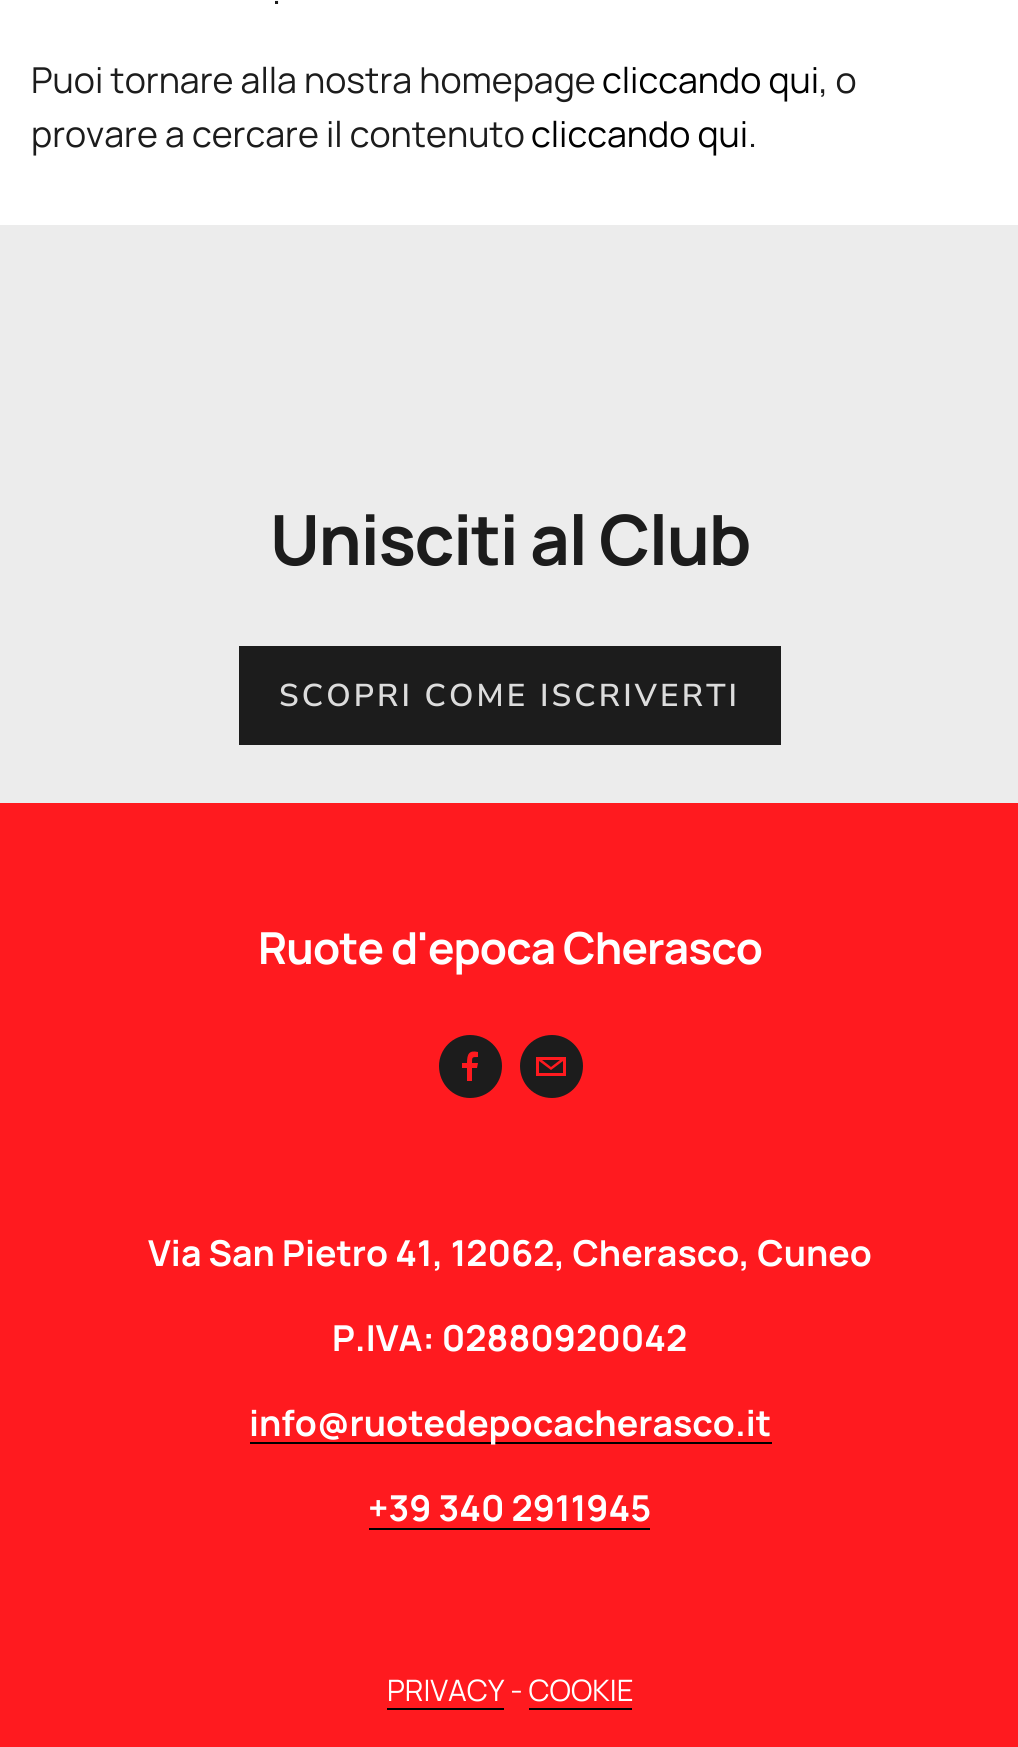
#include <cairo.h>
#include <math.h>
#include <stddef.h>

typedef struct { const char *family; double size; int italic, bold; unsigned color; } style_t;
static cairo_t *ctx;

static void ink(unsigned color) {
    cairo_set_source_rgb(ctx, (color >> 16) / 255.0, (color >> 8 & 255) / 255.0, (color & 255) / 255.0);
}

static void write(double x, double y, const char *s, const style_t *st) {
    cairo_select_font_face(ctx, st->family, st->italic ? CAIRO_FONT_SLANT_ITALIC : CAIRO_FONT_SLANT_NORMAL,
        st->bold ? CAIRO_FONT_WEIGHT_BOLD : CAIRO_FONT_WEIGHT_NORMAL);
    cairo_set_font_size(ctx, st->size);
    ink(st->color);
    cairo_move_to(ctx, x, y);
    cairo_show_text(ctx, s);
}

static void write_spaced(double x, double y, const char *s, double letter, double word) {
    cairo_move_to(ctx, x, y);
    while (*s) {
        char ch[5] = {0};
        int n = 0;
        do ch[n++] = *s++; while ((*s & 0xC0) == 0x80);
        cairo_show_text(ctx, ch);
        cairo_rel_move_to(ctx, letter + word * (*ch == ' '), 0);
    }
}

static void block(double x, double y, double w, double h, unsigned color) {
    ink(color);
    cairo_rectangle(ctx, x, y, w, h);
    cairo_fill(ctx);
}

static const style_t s1 = {"Manrope", 35.7, 0, 0, 0x1c1c1c};
static const style_t s2 = {"Manrope", 35.7, 0, 0, 0x000000};
static const style_t s3 = {"Manrope", 35.7, 0, 1, 0xffffff};
static const style_t s4 = {"Manrope", 29.5, 0, 0, 0xffffff};

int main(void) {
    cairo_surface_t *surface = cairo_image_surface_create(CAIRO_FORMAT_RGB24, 1018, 1747);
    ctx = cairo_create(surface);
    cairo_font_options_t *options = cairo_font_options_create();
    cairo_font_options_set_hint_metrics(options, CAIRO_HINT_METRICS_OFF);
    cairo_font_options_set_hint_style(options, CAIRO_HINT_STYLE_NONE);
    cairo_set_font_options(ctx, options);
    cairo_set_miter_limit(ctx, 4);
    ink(0xffffff);
    cairo_paint(ctx);
    write(272, 4, ".", &s1);
    write(31, 93, "Puoi tornare alla nostra homepage", &s1);
    write(602, 93, "cliccando qui", &s2);
    write(819, 93, ", o", &s1);
    write(31, 147, "provare a cercare il contenuto", &s1);
    write(531, 147, "cliccando qui", &s2);
    write(748, 147, ".", &s1);
    block(0, 225, 1018, 578, 0xececec);
    cairo_select_font_face(ctx, "Manrope", CAIRO_FONT_SLANT_NORMAL, CAIRO_FONT_WEIGHT_BOLD);
    cairo_set_font_size(ctx, 69.25);
    ink(0x1c1c1c);
    write_spaced(270, 565, "Unisciti al Club", -1.4, 0);
    block(239, 646, 542, 99, 0x1c1c1c);
    cairo_select_font_face(ctx, "Nunito Sans SemiBold", CAIRO_FONT_SLANT_NORMAL, CAIRO_FONT_WEIGHT_NORMAL);
    cairo_set_font_size(ctx, 31.5);
    ink(0xdcdcdc);
    write_spaced(279, 706, "SCOPRI COME ISCRIVERTI", 3.15, 0);
    block(0, 803, 1018, 944, 0xff1a1f);
    cairo_select_font_face(ctx, "Manrope", CAIRO_FONT_SLANT_NORMAL, CAIRO_FONT_WEIGHT_BOLD);
    cairo_set_font_size(ctx, 44.1);
    ink(0xffffff);
    write_spaced(258, 964, "Ruote d'epoca Cherasco", -0.9, 0);
    ink(0x1c1c1c);
    cairo_set_fill_rule(ctx, CAIRO_FILL_RULE_EVEN_ODD);
    cairo_new_path(ctx);
    cairo_move_to(ctx, 470, 1035);
    cairo_curve_to(ctx, 453, 1035, 439, 1049, 439, 1066);
    cairo_curve_to(ctx, 439, 1084, 453, 1098, 470, 1098);
    cairo_curve_to(ctx, 488, 1098, 502, 1084, 502, 1066);
    cairo_curve_to(ctx, 502, 1049, 488, 1035, 470, 1035);
    cairo_close_path(ctx);
    cairo_move_to(ctx, 478, 1057);
    cairo_line_to(ctx, 478, 1052);
    cairo_curve_to(ctx, 469, 1050, 467, 1054, 467, 1063);
    cairo_line_to(ctx, 462, 1063);
    cairo_line_to(ctx, 462, 1068);
    cairo_line_to(ctx, 467, 1068);
    cairo_line_to(ctx, 467, 1081);
    cairo_line_to(ctx, 472, 1081);
    cairo_line_to(ctx, 472, 1068);
    cairo_line_to(ctx, 477, 1068);
    cairo_line_to(ctx, 478, 1063);
    cairo_line_to(ctx, 472, 1063);
    cairo_curve_to(ctx, 472, 1057, 472, 1057, 478, 1057);
    cairo_close_path(ctx);
    cairo_fill(ctx);
    cairo_new_path(ctx);
    cairo_move_to(ctx, 552, 1035);
    cairo_curve_to(ctx, 534, 1035, 520, 1049, 520, 1066);
    cairo_curve_to(ctx, 520, 1084, 534, 1098, 552, 1098);
    cairo_curve_to(ctx, 569, 1098, 583, 1084, 583, 1066);
    cairo_curve_to(ctx, 583, 1049, 569, 1035, 552, 1035);
    cairo_close_path(ctx);
    cairo_move_to(ctx, 566, 1076);
    cairo_line_to(ctx, 566, 1057);
    cairo_line_to(ctx, 536, 1057);
    cairo_line_to(ctx, 536, 1076);
    cairo_close_path(ctx);
    cairo_move_to(ctx, 560, 1060);
    cairo_line_to(ctx, 551, 1067);
    cairo_line_to(ctx, 542, 1060);
    cairo_close_path(ctx);
    cairo_move_to(ctx, 563, 1061);
    cairo_line_to(ctx, 563, 1073);
    cairo_line_to(ctx, 539, 1073);
    cairo_line_to(ctx, 539, 1061);
    cairo_line_to(ctx, 551, 1070);
    cairo_close_path(ctx);
    cairo_fill(ctx);
    write(148, 1266, "Via San Pietro 41, 12062, Cherasco, Cuneo", &s3);
    write(332, 1351, "P.IVA: 02880920042", &s3);
    block(250, 1442, 522, 2, 0x000000);
    write(249, 1436, "info@ruotedepocacherasco.it", &s3);
    write(368, 1521, "+39 340 2911945", &s3);
    block(369, 1528, 281, 2, 0x000000);
    write(387, 1701, "PRIVACY - COOKIE", &s4);
    block(387, 1708, 117, 2, 0x000000);
    block(529, 1708, 103, 2, 0x000000);
    cairo_surface_write_to_png(surface, "screenshot.png");
    cairo_font_options_destroy(options);
    cairo_destroy(ctx);
    cairo_surface_destroy(surface);
    return 0;
}
